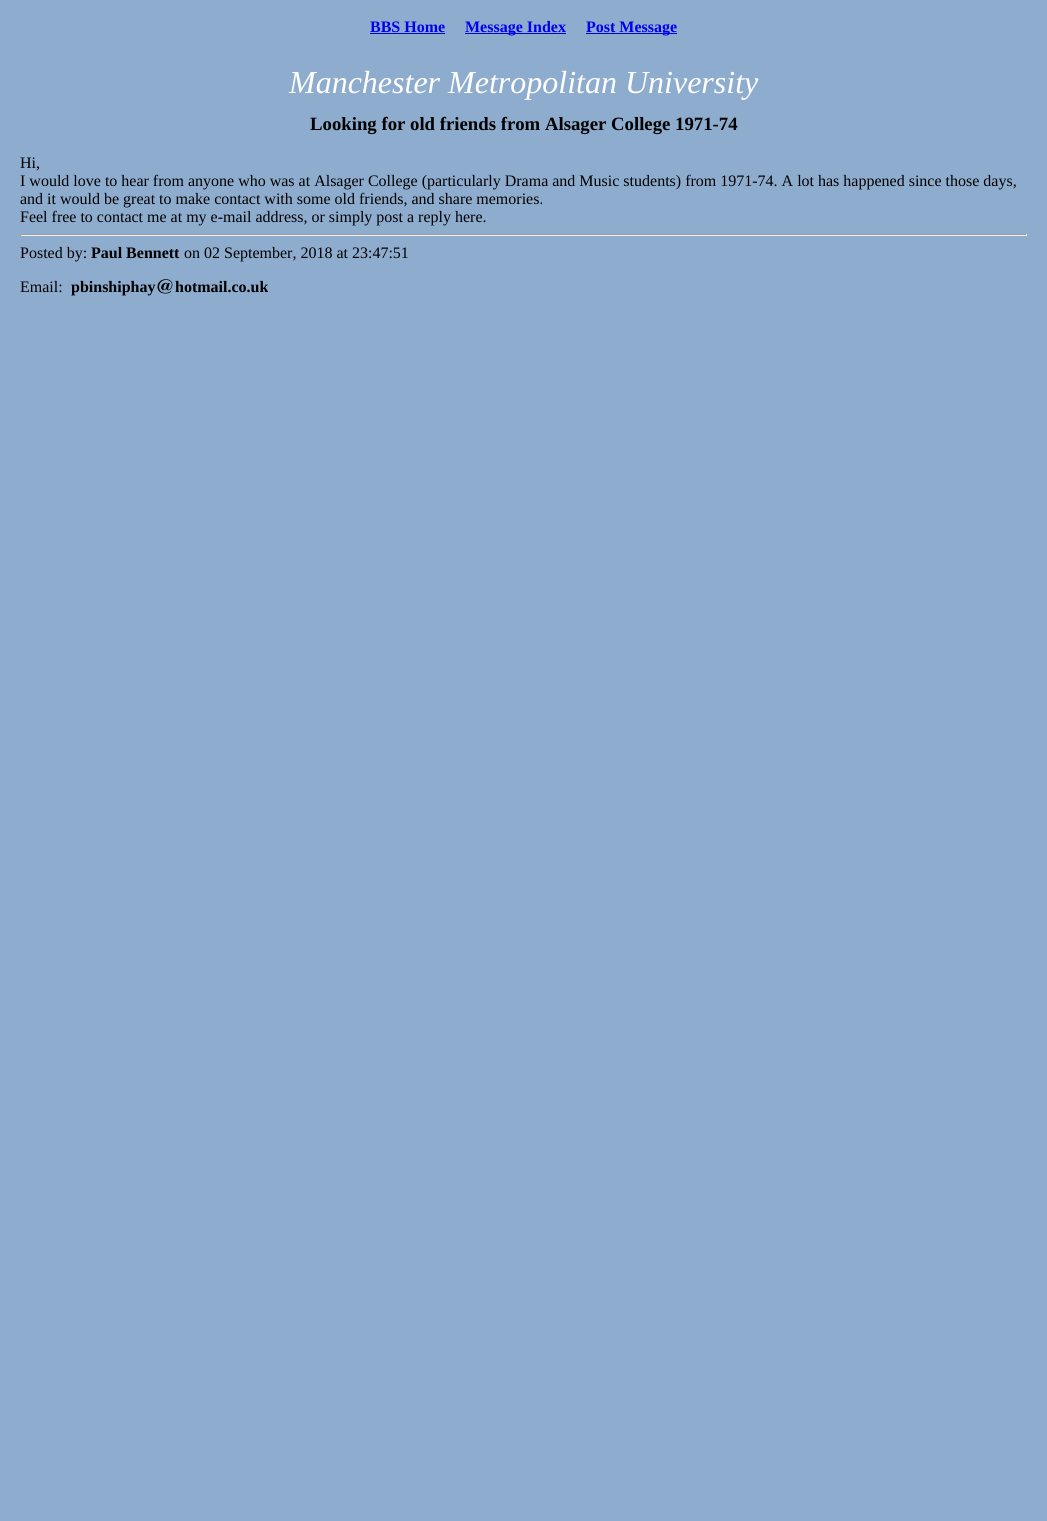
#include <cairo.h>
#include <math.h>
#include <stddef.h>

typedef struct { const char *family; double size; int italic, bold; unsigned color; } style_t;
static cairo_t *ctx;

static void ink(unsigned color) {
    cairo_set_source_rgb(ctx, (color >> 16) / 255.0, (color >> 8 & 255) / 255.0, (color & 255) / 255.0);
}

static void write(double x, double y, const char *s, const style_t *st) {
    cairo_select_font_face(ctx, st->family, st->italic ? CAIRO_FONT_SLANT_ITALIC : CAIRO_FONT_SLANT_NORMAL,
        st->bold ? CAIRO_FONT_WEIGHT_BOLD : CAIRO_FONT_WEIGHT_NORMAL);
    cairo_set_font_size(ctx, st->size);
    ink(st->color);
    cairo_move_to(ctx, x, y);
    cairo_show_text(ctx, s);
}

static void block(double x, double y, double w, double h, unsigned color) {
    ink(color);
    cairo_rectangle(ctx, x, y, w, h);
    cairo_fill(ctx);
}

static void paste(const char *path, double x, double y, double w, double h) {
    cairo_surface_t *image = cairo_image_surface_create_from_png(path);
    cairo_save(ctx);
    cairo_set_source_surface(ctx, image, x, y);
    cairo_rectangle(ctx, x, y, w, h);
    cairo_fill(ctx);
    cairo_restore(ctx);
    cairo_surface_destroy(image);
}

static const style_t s1 = {"Liberation Serif", 16, 0, 1, 0x0000ee};
static const style_t s2 = {"Liberation Serif", 32, 1, 0, 0xffffff};
static const style_t s3 = {"Liberation Serif", 18.75, 0, 1, 0x000000};
static const style_t s4 = {"Liberation Serif", 16, 0, 0, 0x000000};
static const style_t s5 = {"Liberation Serif", 16, 0, 1, 0x000000};

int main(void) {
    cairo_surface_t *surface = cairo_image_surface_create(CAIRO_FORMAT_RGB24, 1047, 1521);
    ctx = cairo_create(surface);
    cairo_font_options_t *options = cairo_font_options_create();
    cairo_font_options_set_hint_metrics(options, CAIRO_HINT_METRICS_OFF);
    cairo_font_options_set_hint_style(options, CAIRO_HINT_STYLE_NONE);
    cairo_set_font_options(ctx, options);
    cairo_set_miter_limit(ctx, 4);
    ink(0x8dacce);
    cairo_paint(ctx);
    write(370, 32, "BBS Home", &s1);
    block(370, 33, 75, 1, 0x0000ee);
    block(465, 33, 101, 1, 0x0000ee);
    write(465, 32, "Message Index", &s1);
    block(586, 33, 91, 1, 0x0000ee);
    write(586, 32, "Post Message", &s1);
    write(289, 93, "Manchester Metropolitan University", &s2);
    write(310, 130, "Looking for old friends from Alsager College 1971-74", &s3);
    write(20, 168, "Hi,", &s4);
    write(20, 186, "I would love to hear from anyone who was at Alsager College (particularly Drama and Music students) from 1971-74. A lot has happened since those days,", &s4);
    write(20, 204, "and it would be great to make contact with some old friends, and share memories.", &s4);
    write(20, 222, "Feel free to contact me at my e-mail address, or simply post a reply here.", &s4);
    block(20, 234, 1007, 1, 0x9f9f9f);
    block(1026, 234, 1, 2, 0xeeeeee);
    block(20, 235, 1007, 1, 0xeeeeee);
    block(20, 234, 1, 2, 0x9f9f9f);
    write(20, 258, "Posted by:", &s4);
    write(91, 258, "Paul Bennett", &s5);
    write(184, 258, "on 02 September, 2018 at 23:47:51", &s4);
    write(20, 292, "Email:", &s4);
    write(71, 292, "pbinshiphay", &s5);
    paste("pic1.png", 157, 279, 16, 15);
    write(175, 292, "hotmail.co.uk", &s5);
    cairo_surface_write_to_png(surface, "screenshot.png");
    cairo_font_options_destroy(options);
    cairo_destroy(ctx);
    cairo_surface_destroy(surface);
    return 0;
}
